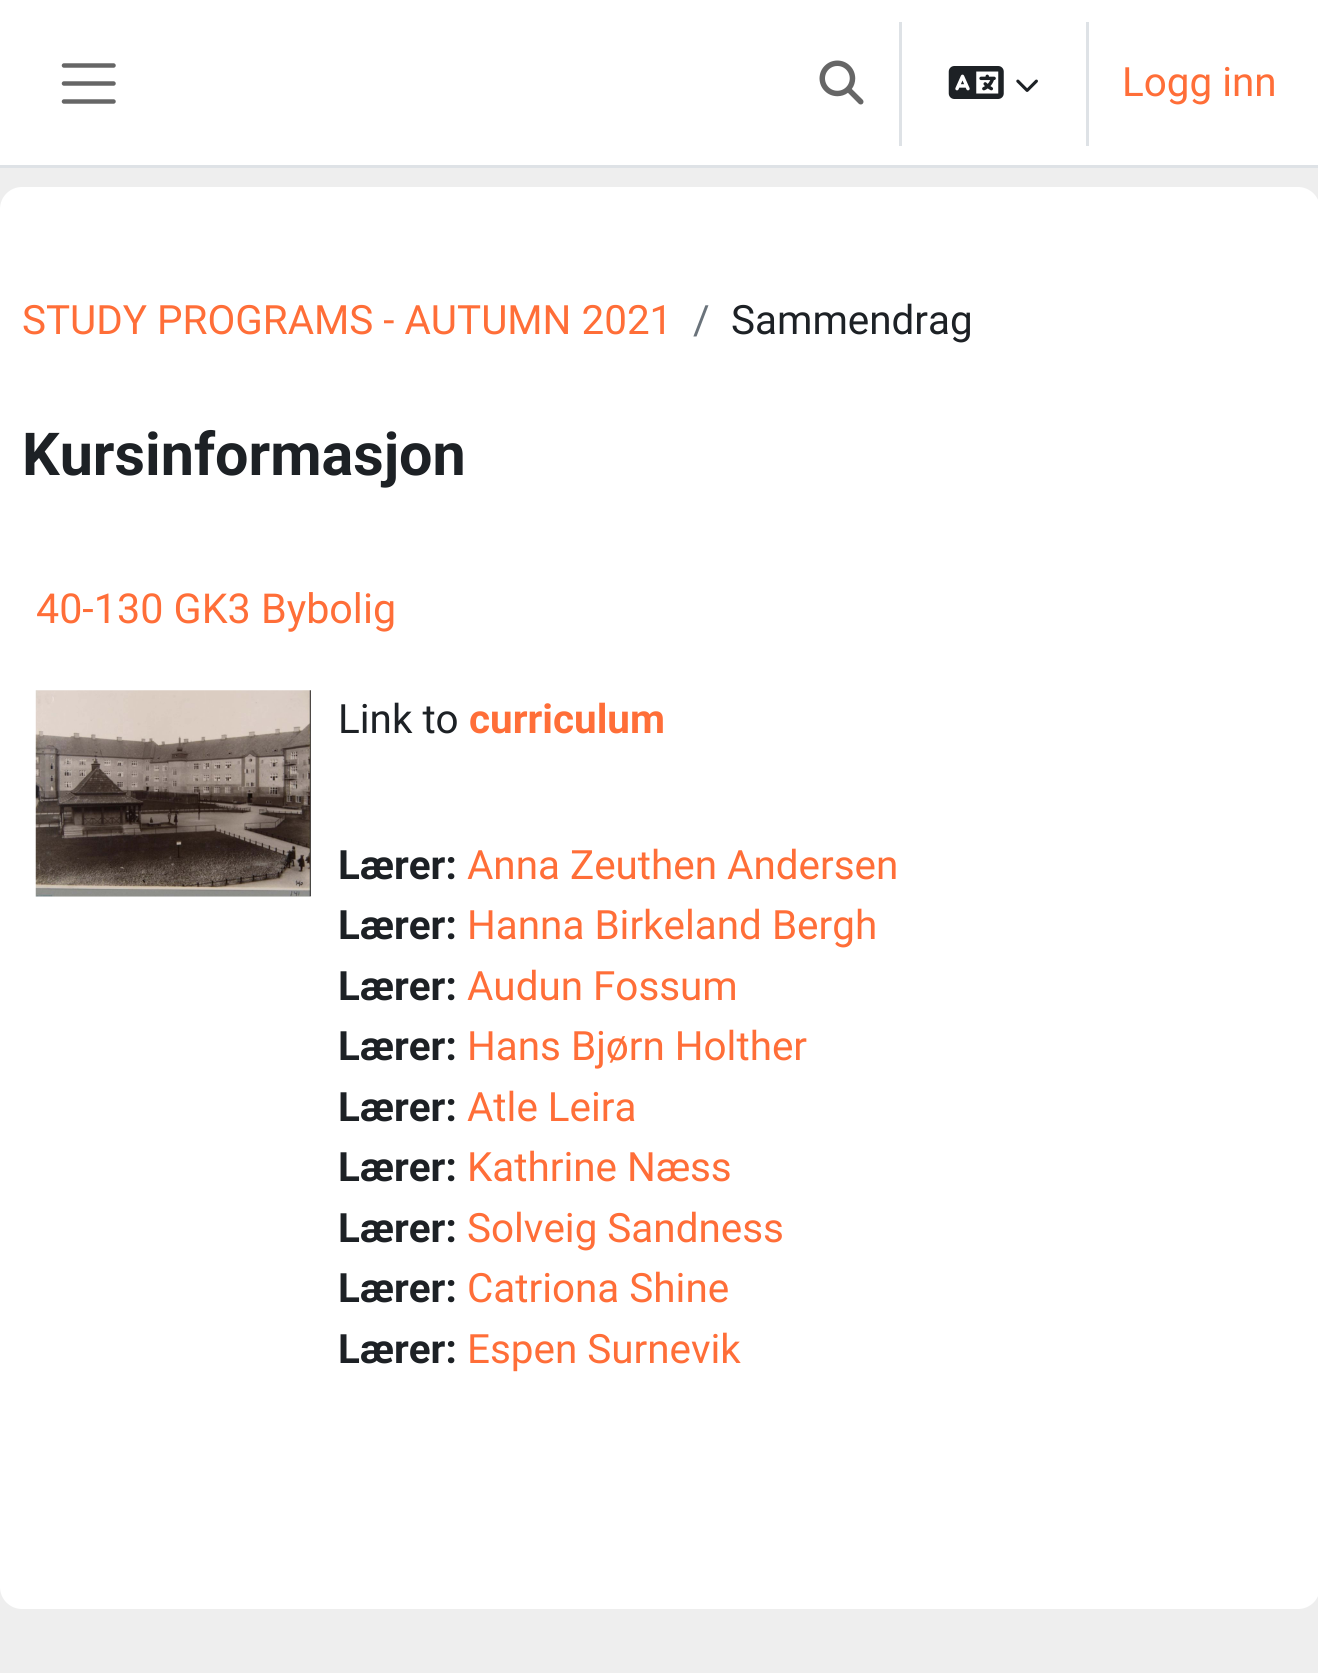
#include <cairo.h>
#include <math.h>
#include <stddef.h>

typedef struct { const char *family; double size; int italic, bold; unsigned color; } style_t;
static cairo_t *ctx;

static void ink(unsigned color) {
    cairo_set_source_rgb(ctx, (color >> 16) / 255.0, (color >> 8 & 255) / 255.0, (color & 255) / 255.0);
}

static void write(double x, double y, const char *s, const style_t *st) {
    cairo_select_font_face(ctx, st->family, st->italic ? CAIRO_FONT_SLANT_ITALIC : CAIRO_FONT_SLANT_NORMAL,
        st->bold ? CAIRO_FONT_WEIGHT_BOLD : CAIRO_FONT_WEIGHT_NORMAL);
    cairo_set_font_size(ctx, st->size);
    ink(st->color);
    cairo_move_to(ctx, x, y);
    cairo_show_text(ctx, s);
}

static void block(double x, double y, double w, double h, unsigned color) {
    ink(color);
    cairo_rectangle(ctx, x, y, w, h);
    cairo_fill(ctx);
}

static void round_path(double x, double y, double w, double h, double r) {
    cairo_new_sub_path(ctx);
    cairo_arc(ctx, x + w - r, y + h - r, r, 0, M_PI / 2);
    cairo_arc(ctx, x + r, y + h - r, r, M_PI / 2, M_PI);
    cairo_arc(ctx, x + r, y + r, r, M_PI, 1.5 * M_PI);
    cairo_arc(ctx, x + w - r, y + r, r, 1.5 * M_PI, 2 * M_PI);
    cairo_close_path(ctx);
}

static void paste(const char *path, double x, double y, double w, double h) {
    cairo_surface_t *image = cairo_image_surface_create_from_png(path);
    cairo_save(ctx);
    cairo_set_source_surface(ctx, image, x, y);
    cairo_rectangle(ctx, x, y, w, h);
    cairo_fill(ctx);
    cairo_restore(ctx);
    cairo_surface_destroy(image);
}

static const style_t s1 = {"Roboto", 40.4, 0, 0, 0xff6e38};
static const style_t s2 = {"Roboto", 40.4, 0, 0, 0x6a737b};
static const style_t s3 = {"Roboto", 40.4, 0, 0, 0x1d2125};
static const style_t s4 = {"Roboto", 59.25, 0, 1, 0x1d2125};
static const style_t s5 = {"Roboto", 41.25, 0, 0, 0xff6e38};
static const style_t s6 = {"Roboto", 40.4, 0, 1, 0xff6e38};
static const style_t s7 = {"Roboto", 40.4, 0, 1, 0x1d2125};

int main(void) {
    cairo_surface_t *surface = cairo_image_surface_create(CAIRO_FORMAT_RGB24, 1318, 1673);
    ctx = cairo_create(surface);
    cairo_font_options_t *options = cairo_font_options_create();
    cairo_font_options_set_hint_metrics(options, CAIRO_HINT_METRICS_OFF);
    cairo_font_options_set_hint_style(options, CAIRO_HINT_STYLE_NONE);
    cairo_set_font_options(ctx, options);
    cairo_set_miter_limit(ctx, 4);
    ink(0xeeeeee);
    cairo_paint(ctx);
    block(0, 0, 1318, 165, 0xffffff);
    block(0, 165, 1318, 3, 0xdee2e6);
    cairo_new_path(ctx);
    cairo_move_to(ctx, 64, 65.5);
    cairo_line_to(ctx, 113.5, 65.5);
    cairo_move_to(ctx, 64, 83.5);
    cairo_line_to(ctx, 113.5, 83.5);
    cairo_move_to(ctx, 64, 101.5);
    cairo_line_to(ctx, 113.5, 101.5);
    ink(0x666666);
    cairo_set_line_width(ctx, 4.5);
    cairo_set_line_cap(ctx, CAIRO_LINE_CAP_ROUND);
    cairo_stroke(ctx);
    paste("pic1.png", 819, 60, 45, 45);
    block(899, 22, 3, 124, 0xdee2e6);
    paste("pic2.png", 948, 66, 56, 33);
    paste("pic3.png", 1016, 79, 22, 13);
    block(1086, 22, 3, 124, 0xdee2e6);
    write(1122, 96, "Logg inn", &s1);
    ink(0xffffff);
    round_path(0, 187, 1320, 1422, 22);
    cairo_fill(ctx);
    write(22, 334, "STUDY PROGRAMS - AUTUMN 2021", &s1);
    write(693, 334, "/", &s2);
    write(731, 334, "Sammendrag", &s3);
    write(22, 475, "Kursinformasjon", &s4);
    write(36, 623, "40-130 GK3 Bybolig", &s5);
    paste("pic4.png", 35, 690, 276, 207);
    write(338, 733, "Link to", &s3);
    write(469, 733, "curriculum", &s6);
    write(338, 879, "Lærer:", &s7);
    write(467, 879, "Anna Zeuthen Andersen", &s1);
    write(338, 939, "Lærer:", &s7);
    write(467, 939, "Hanna Birkeland Bergh", &s1);
    write(338, 1000, "Lærer:", &s7);
    write(467, 1000, "Audun Fossum", &s1);
    write(338, 1060, "Lærer:", &s7);
    write(467, 1060, "Hans Bjørn Holther", &s1);
    write(338, 1121, "Lærer:", &s7);
    write(467, 1121, "Atle Leira", &s1);
    write(338, 1181, "Lærer:", &s7);
    write(467, 1181, "Kathrine Næss", &s1);
    write(338, 1242, "Lærer:", &s7);
    write(467, 1242, "Solveig Sandness", &s1);
    write(338, 1302, "Lærer:", &s7);
    write(467, 1302, "Catriona Shine", &s1);
    write(338, 1363, "Lærer:", &s7);
    write(467, 1363, "Espen Surnevik", &s1);
    cairo_surface_write_to_png(surface, "screenshot.png");
    cairo_font_options_destroy(options);
    cairo_destroy(ctx);
    cairo_surface_destroy(surface);
    return 0;
}
